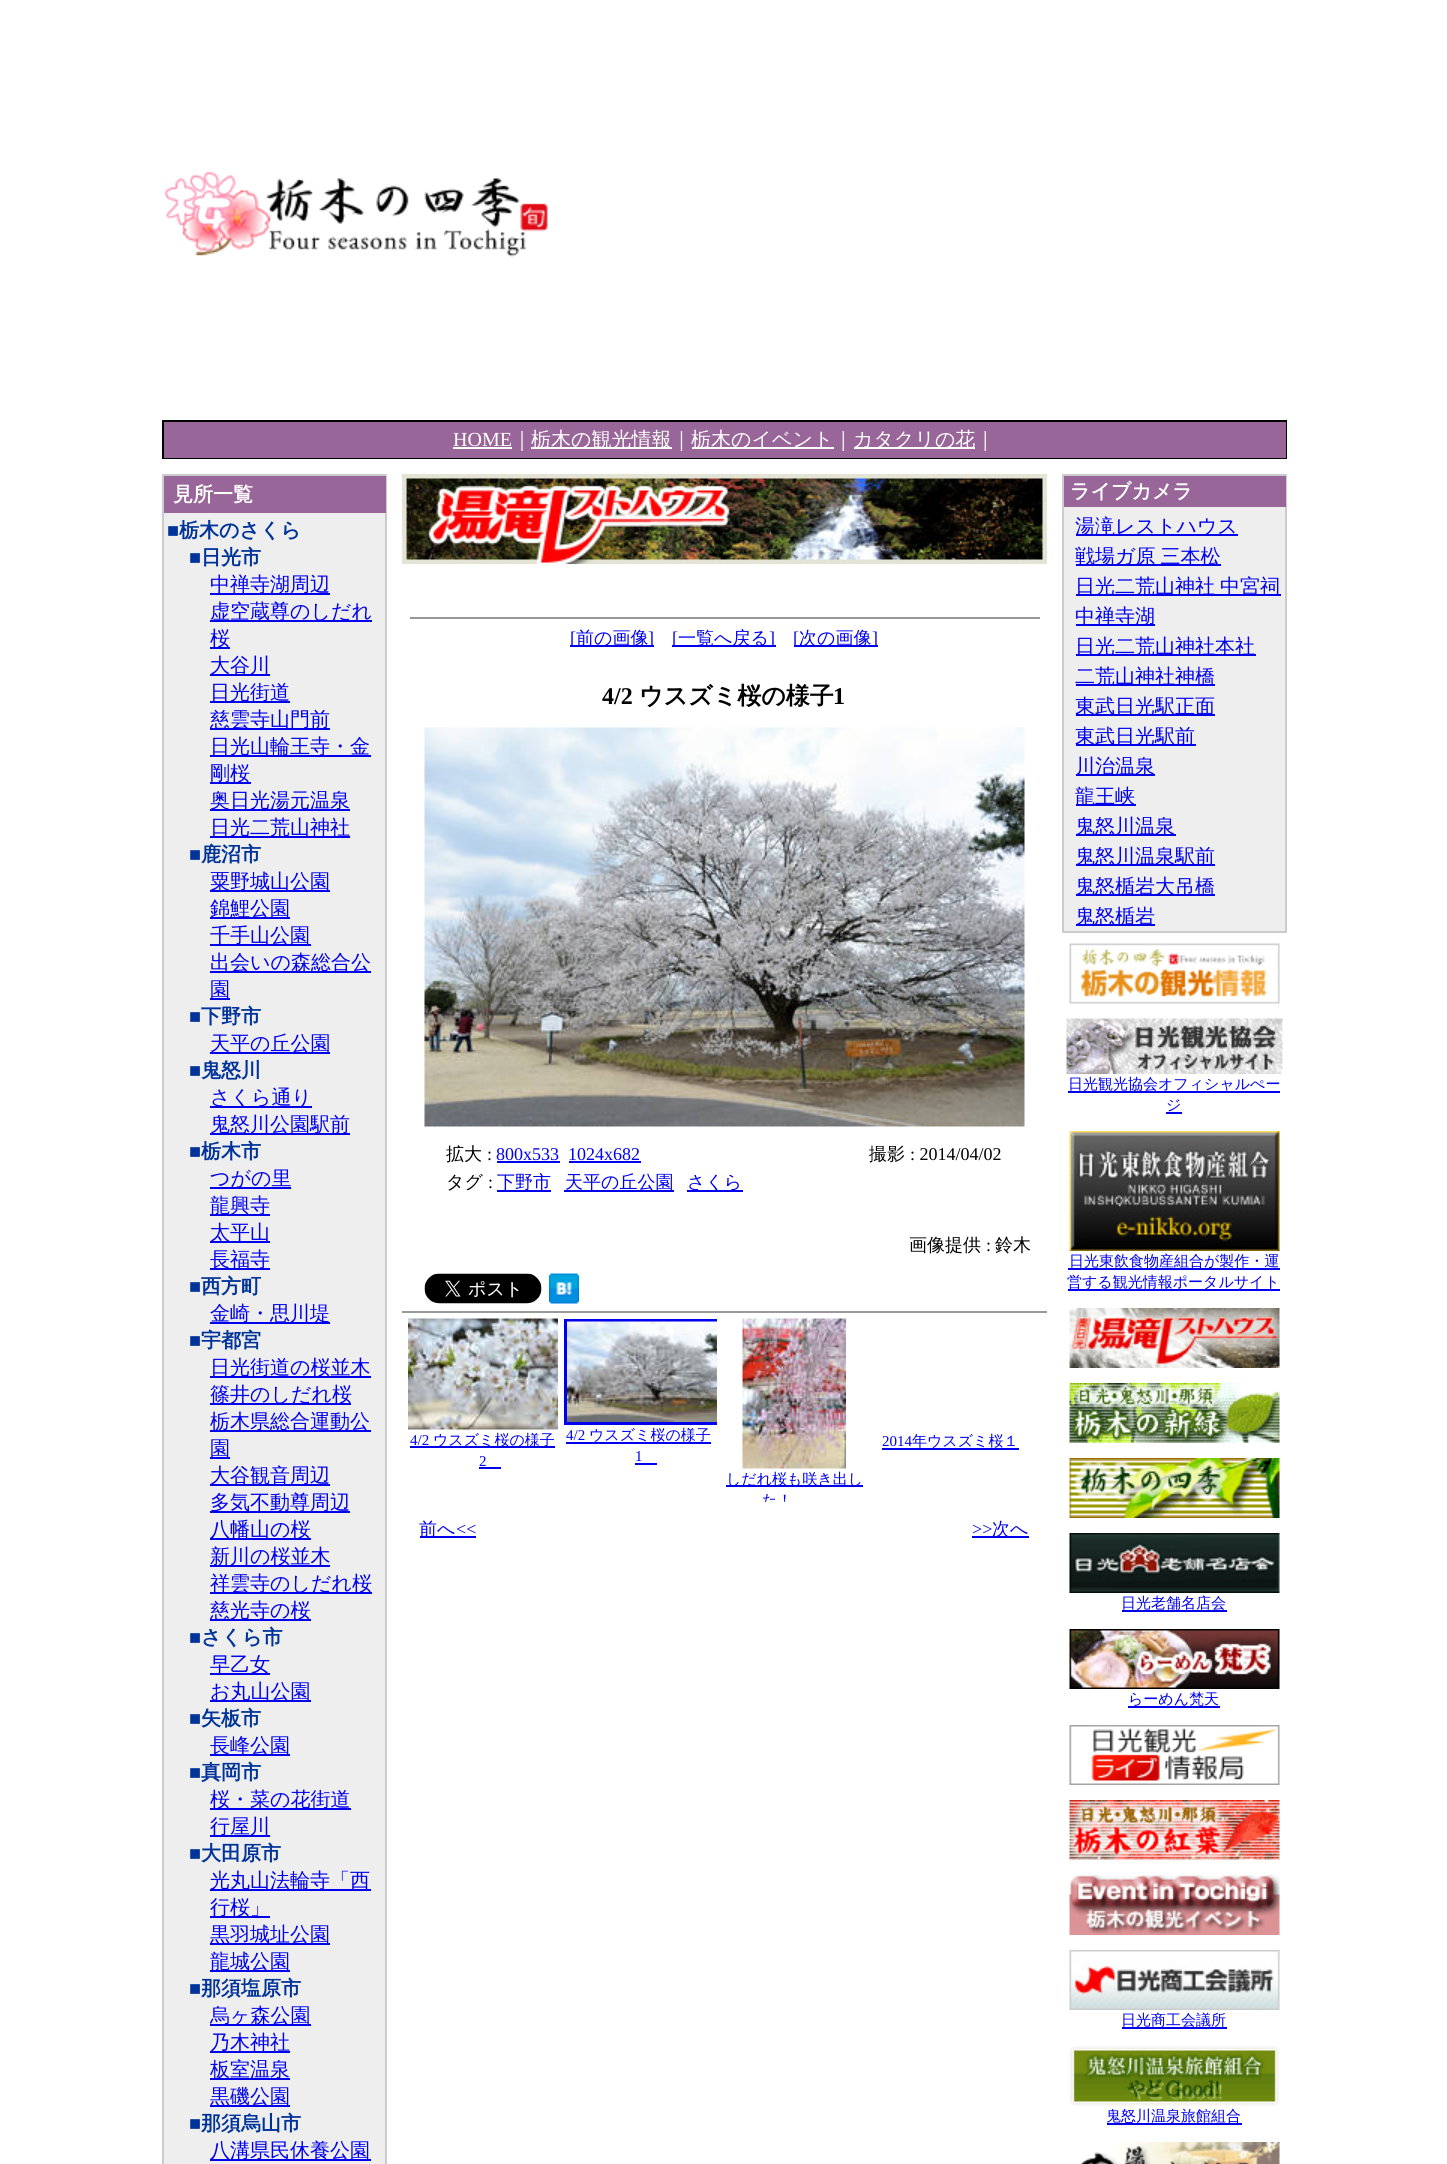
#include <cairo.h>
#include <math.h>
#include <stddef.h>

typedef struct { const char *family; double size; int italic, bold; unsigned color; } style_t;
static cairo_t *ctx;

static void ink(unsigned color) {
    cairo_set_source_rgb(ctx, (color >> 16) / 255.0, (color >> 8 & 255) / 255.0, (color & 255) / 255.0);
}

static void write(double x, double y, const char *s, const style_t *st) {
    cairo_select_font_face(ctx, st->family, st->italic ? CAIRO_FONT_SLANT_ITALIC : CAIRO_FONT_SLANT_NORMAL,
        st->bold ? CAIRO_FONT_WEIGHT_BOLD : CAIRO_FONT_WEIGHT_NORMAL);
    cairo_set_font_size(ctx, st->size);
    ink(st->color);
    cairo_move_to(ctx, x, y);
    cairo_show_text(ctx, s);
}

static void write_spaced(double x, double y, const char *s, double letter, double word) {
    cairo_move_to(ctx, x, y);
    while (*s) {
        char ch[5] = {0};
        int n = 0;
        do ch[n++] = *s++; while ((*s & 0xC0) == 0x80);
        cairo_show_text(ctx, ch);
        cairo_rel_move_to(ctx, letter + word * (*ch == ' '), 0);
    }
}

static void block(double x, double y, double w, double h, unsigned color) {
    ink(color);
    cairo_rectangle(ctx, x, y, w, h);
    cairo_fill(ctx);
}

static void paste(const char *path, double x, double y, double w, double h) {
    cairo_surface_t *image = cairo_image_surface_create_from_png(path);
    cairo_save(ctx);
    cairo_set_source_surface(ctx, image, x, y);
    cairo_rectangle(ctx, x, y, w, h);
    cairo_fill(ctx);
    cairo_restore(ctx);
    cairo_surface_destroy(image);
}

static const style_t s1 = {"Liberation Serif", 20, 0, 0, 0xffffff};
static const style_t s2 = {"WenQuanYi Zen Hei Medium", 20, 0, 0, 0xffffff};
static const style_t s3 = {"WenQuanYi Zen Hei", 20, 0, 1, 0xffffff};
static const style_t s4 = {"Liberation Serif", 20, 0, 1, 0x003399};
static const style_t s5 = {"WenQuanYi Zen Hei", 20, 0, 1, 0x003399};
static const style_t s6 = {"WenQuanYi Zen Hei Medium", 20, 0, 0, 0x0000ee};
static const style_t s7 = {"Liberation Serif", 18, 0, 0, 0x0000ee};
static const style_t s8 = {"WenQuanYi Zen Hei Medium", 18, 0, 0, 0x0000ee};
static const style_t s9 = {"Liberation Serif", 24, 0, 1, 0x000000};
static const style_t s10 = {"WenQuanYi Zen Hei", 24, 0, 1, 0x000000};
static const style_t s11 = {"WenQuanYi Zen Hei Medium", 18, 0, 0, 0x000000};
static const style_t s12 = {"Liberation Serif", 18, 0, 0, 0x000000};
static const style_t s13 = {"Liberation Serif", 15, 0, 0, 0x0000ee};
static const style_t s14 = {"WenQuanYi Zen Hei Medium", 15, 0, 0, 0x0000ee};

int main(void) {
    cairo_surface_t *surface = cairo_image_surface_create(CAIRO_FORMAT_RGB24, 1447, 2164);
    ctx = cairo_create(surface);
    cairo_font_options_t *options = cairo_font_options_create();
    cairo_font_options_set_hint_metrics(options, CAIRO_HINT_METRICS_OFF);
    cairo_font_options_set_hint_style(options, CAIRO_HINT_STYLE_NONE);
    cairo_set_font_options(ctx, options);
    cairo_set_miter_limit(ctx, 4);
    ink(0xffffff);
    cairo_paint(ctx);
    paste("pic1.png", 164, 171, 384, 86);
    block(162, 420, 1125, 39, 0x000000);
    block(164, 422, 1122, 36, 0x996699);
    write(453, 446, "HOME", &s1);
    block(453, 447, 59, 2, 0xffffff);
    write(512, 446, "｜", &s2);
    block(531, 447, 141, 2, 0xffffff);
    write(531, 446, "栃木の観光情報｜", &s2);
    block(692, 447, 142, 2, 0xffffff);
    write(691, 446, "栃木のイベント｜", &s2);
    block(854, 447, 121, 2, 0xffffff);
    write(853, 446, "カタクリの花｜", &s2);
    block(164, 513, 221, 1651, 0xeeeeee);
    cairo_rectangle(ctx, 163, 475, 223, 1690);
    ink(0xcccccc);
    cairo_stroke(ctx);
    block(164, 476, 222, 37, 0x996699);
    write(173, 501, "見所一覧", &s3);
    write(167, 537, "■", &s4);
    write(179, 537, "栃木のさくら", &s5);
    write(189, 564, "■", &s4);
    write(201, 564, "日光市", &s5);
    block(210, 593, 120, 2, 0x0000ee);
    write(210, 591, "中禅寺湖周辺", &s6);
    block(210, 620, 162, 2, 0x0000ee);
    write(210, 618, "虚空蔵尊のしだれ", &s6);
    block(210, 647, 20, 2, 0x0000ee);
    write(210, 645, "桜", &s6);
    block(210, 674, 60, 2, 0x0000ee);
    write(210, 672, "大谷川", &s6);
    block(210, 701, 80, 2, 0x0000ee);
    write(210, 699, "日光街道", &s6);
    block(210, 728, 120, 2, 0x0000ee);
    write(210, 726, "慈雲寺山門前", &s6);
    block(210, 755, 161, 2, 0x0000ee);
    write(210, 753, "日光山輪王寺・金", &s6);
    block(210, 782, 41, 2, 0x0000ee);
    write(210, 780, "剛桜", &s6);
    block(210, 809, 140, 2, 0x0000ee);
    write(210, 807, "奥日光湯元温泉", &s6);
    block(210, 836, 140, 2, 0x0000ee);
    write(210, 834, "日光二荒山神社", &s6);
    write(189, 861, "■", &s4);
    write(201, 861, "鹿沼市", &s5);
    block(210, 890, 120, 2, 0x0000ee);
    write(210, 888, "粟野城山公園", &s6);
    block(210, 917, 80, 2, 0x0000ee);
    write(210, 915, "錦鯉公園", &s6);
    block(210, 944, 101, 2, 0x0000ee);
    write(210, 942, "千手山公園", &s6);
    block(210, 971, 161, 2, 0x0000ee);
    write(210, 969, "出会いの森総合公", &s6);
    block(210, 998, 20, 2, 0x0000ee);
    write(210, 996, "園", &s6);
    write(189, 1023, "■", &s4);
    write(201, 1023, "下野市", &s5);
    block(210, 1052, 120, 2, 0x0000ee);
    write(210, 1050, "天平の丘公園", &s6);
    write(189, 1077, "■", &s4);
    write(201, 1077, "鬼怒川", &s5);
    block(210, 1106, 102, 2, 0x0000ee);
    write(210, 1104, "さくら通り", &s6);
    block(210, 1133, 140, 2, 0x0000ee);
    write(210, 1131, "鬼怒川公園駅前", &s6);
    write(189, 1158, "■", &s4);
    write(201, 1158, "栃木市", &s5);
    block(210, 1187, 81, 2, 0x0000ee);
    write(210, 1185, "つがの里", &s6);
    block(210, 1214, 60, 2, 0x0000ee);
    write(210, 1212, "龍興寺", &s6);
    block(210, 1241, 60, 2, 0x0000ee);
    write(210, 1239, "太平山", &s6);
    block(210, 1268, 60, 2, 0x0000ee);
    write(210, 1266, "長福寺", &s6);
    write(189, 1293, "■", &s4);
    write(201, 1293, "西方町", &s5);
    block(210, 1322, 120, 2, 0x0000ee);
    write(210, 1320, "金崎・思川堤", &s6);
    write(189, 1347, "■", &s4);
    write(201, 1347, "宇都宮", &s5);
    block(210, 1376, 161, 2, 0x0000ee);
    write(210, 1374, "日光街道の桜並木", &s6);
    block(210, 1403, 141, 2, 0x0000ee);
    write(210, 1401, "篠井のしだれ桜", &s6);
    block(210, 1430, 161, 2, 0x0000ee);
    write(210, 1428, "栃木県総合運動公", &s6);
    block(210, 1457, 20, 2, 0x0000ee);
    write(210, 1455, "園", &s6);
    block(210, 1484, 120, 2, 0x0000ee);
    write(210, 1482, "大谷観音周辺", &s6);
    block(210, 1511, 140, 2, 0x0000ee);
    write(210, 1509, "多気不動尊周辺", &s6);
    block(210, 1538, 101, 2, 0x0000ee);
    write(210, 1536, "八幡山の桜", &s6);
    block(210, 1565, 120, 2, 0x0000ee);
    write(210, 1563, "新川の桜並木", &s6);
    block(210, 1592, 162, 2, 0x0000ee);
    write(210, 1590, "祥雲寺のしだれ桜", &s6);
    block(210, 1619, 101, 2, 0x0000ee);
    write(210, 1617, "慈光寺の桜", &s6);
    write(189, 1644, "■", &s4);
    write(201, 1644, "さくら市", &s5);
    block(210, 1673, 60, 2, 0x0000ee);
    write(210, 1671, "早乙女", &s6);
    block(210, 1700, 101, 2, 0x0000ee);
    write(210, 1698, "お丸山公園", &s6);
    write(189, 1725, "■", &s4);
    write(201, 1725, "矢板市", &s5);
    block(210, 1754, 80, 2, 0x0000ee);
    write(210, 1752, "長峰公園", &s6);
    write(189, 1779, "■", &s4);
    write(201, 1779, "真岡市", &s5);
    block(210, 1808, 141, 2, 0x0000ee);
    write(210, 1806, "桜・菜の花街道", &s6);
    block(210, 1835, 60, 2, 0x0000ee);
    write(210, 1833, "行屋川", &s6);
    write(189, 1860, "■", &s4);
    write(201, 1860, "大田原市", &s5);
    block(210, 1889, 161, 2, 0x0000ee);
    write(210, 1887, "光丸山法輪寺「西", &s6);
    block(210, 1916, 60, 2, 0x0000ee);
    write(210, 1914, "行桜」", &s6);
    block(210, 1943, 120, 2, 0x0000ee);
    write(210, 1941, "黒羽城址公園", &s6);
    block(210, 1970, 80, 2, 0x0000ee);
    write(210, 1968, "龍城公園", &s6);
    write(189, 1995, "■", &s4);
    write(201, 1995, "那須塩原市", &s5);
    block(210, 2024, 101, 2, 0x0000ee);
    write(210, 2022, "烏ヶ森公園", &s6);
    block(210, 2051, 80, 2, 0x0000ee);
    write(210, 2049, "乃木神社", &s6);
    block(210, 2078, 80, 2, 0x0000ee);
    write(210, 2076, "板室温泉", &s6);
    block(210, 2105, 80, 2, 0x0000ee);
    write(210, 2103, "黒磯公園", &s6);
    write(189, 2130, "■", &s4);
    write(201, 2130, "那須烏山市", &s5);
    block(210, 2159, 161, 2, 0x0000ee);
    write(210, 2157, "八溝県民休養公園", &s6);
    paste("pic2.png", 402, 474, 645, 90);
    block(410, 617, 630, 2, 0x999999);
    block(570, 645, 84, 2, 0x0000ee);
    write(570, 644, "[", &s7);
    write(576, 644, "前の画像", &s8);
    write(648, 644, "]", &s7);
    block(672, 645, 104, 2, 0x0000ee);
    write(672, 644, "[", &s7);
    write(678, 644, "一覧へ戻る", &s8);
    write(769, 644, "]", &s7);
    block(794, 645, 84, 2, 0x0000ee);
    write(793, 644, "[", &s7);
    write(799, 644, "次の画像", &s8);
    write(872, 644, "]", &s7);
    write(602, 704, "4/2", &s9);
    write(639, 704, "ウスズミ桜の様子", &s10);
    write(833, 704, "1", &s9);
    paste("pic3.png", 424, 727, 601, 400);
    write(446, 1160, "拡大", &s11);
    write(487, 1160, ":", &s12);
    write(496, 1160, "800x533", &s7);
    block(497, 1161, 63, 2, 0x0000ee);
    write(568, 1160, "1024x682", &s7);
    block(569, 1161, 72, 2, 0x0000ee);
    write(869, 1160, "撮影", &s11);
    write(910, 1160, ": 2014/04/02", &s12);
    write(446, 1188, "タグ", &s11);
    write(488, 1188, ":", &s12);
    block(497, 1190, 54, 2, 0x0000ee);
    write(497, 1188, "下野市", &s8);
    block(564, 1190, 110, 2, 0x0000ee);
    write(565, 1188, "天平の丘公園", &s8);
    block(687, 1190, 56, 2, 0x0000ee);
    write(687, 1188, "さくら", &s8);
    write(909, 1251, "画像提供", &s11);
    write(986, 1251, ":", &s12);
    write(995, 1251, "鈴木", &s11);
    paste("pic4.png", 424, 1273, 118, 31);
    paste("pic5.png", 549, 1273, 30, 31);
    block(402, 1311, 645, 2, 0x999999);
    paste("pic6.png", 408, 1318, 150, 112);
    write(410, 1445, "4/2", &s13);
    block(410, 1446, 145, 2, 0x0000ee);
    write(433, 1445, "ウスズミ桜の様子", &s14);
    write(479, 1466, "2", &s13);
    block(479, 1467, 22, 2, 0x0000ee);
    cairo_save(ctx);
    cairo_rectangle(ctx, 561, 1316, 156, 186);
    cairo_clip(ctx);
    cairo_rectangle(ctx, 565.5, 1320.5, 153, 103);
    cairo_set_line_width(ctx, 3);
    cairo_stroke(ctx);
    cairo_restore(ctx);
    paste("pic7.png", 567, 1321, 150, 101);
    write(566, 1440, "4/2", &s13);
    block(566, 1442, 145, 2, 0x0000ee);
    write(589, 1440, "ウスズミ桜の様子", &s14);
    write(635, 1461, "1", &s13);
    block(635, 1463, 22, 2, 0x0000ee);
    write(882, 1446, "2014", &s13);
    block(882, 1448, 137, 2, 0x0000ee);
    write(912, 1446, "年ウスズミ桜１", &s14);
    paste("pic8.png", 742, 1318, 104, 151);
    block(726, 1485, 137, 2, 0x0000ee);
    write(726, 1484, "しだれ桜も咲き出し", &s14);
    cairo_save(ctx);
    cairo_rectangle(ctx, 717, 1316, 156, 186);
    cairo_clip(ctx);
    write(762, 1505, "た！", &s14);
    cairo_restore(ctx);
    block(420, 1536, 56, 2, 0x0000ee);
    write(419, 1535, "前へ", &s8);
    write(456, 1535, "<<", &s7);
    write(972, 1535, ">>", &s7);
    block(972, 1536, 57, 2, 0x0000ee);
    write(992, 1535, "次へ", &s8);
    block(1064, 507, 221, 424, 0xeeeeee);
    cairo_rectangle(ctx, 1063, 475, 223, 457);
    ink(0xcccccc);
    cairo_stroke(ctx);
    block(1064, 476, 222, 31, 0x996699);
    write(1070, 498, "ライブカメラ", &s3);
    block(1076, 534, 162, 2, 0x0000ee);
    write(1075, 533, "湯滝レストハウス", &s6);
    block(1076, 564, 145, 2, 0x0000ee);
    write_spaced(1075, 563, "戦場ガ原 三本松", 0, -1);
    block(1076, 594, 205, 2, 0x0000ee);
    write_spaced(1075, 593, "日光二荒山神社 中宮祠", 0, -1);
    block(1076, 624, 79, 2, 0x0000ee);
    write(1075, 623, "中禅寺湖", &s6);
    block(1076, 654, 180, 2, 0x0000ee);
    write(1075, 653, "日光二荒山神社本社", &s6);
    block(1076, 684, 139, 2, 0x0000ee);
    write(1075, 683, "二荒山神社神橋", &s6);
    block(1076, 714, 139, 2, 0x0000ee);
    write(1075, 713, "東武日光駅正面", &s6);
    block(1076, 744, 120, 2, 0x0000ee);
    write(1075, 743, "東武日光駅前", &s6);
    block(1076, 774, 79, 2, 0x0000ee);
    write(1075, 773, "川治温泉", &s6);
    block(1076, 804, 60, 2, 0x0000ee);
    write(1075, 803, "龍王峡", &s6);
    block(1076, 834, 100, 2, 0x0000ee);
    write(1075, 833, "鬼怒川温泉", &s6);
    block(1076, 864, 139, 2, 0x0000ee);
    write(1075, 863, "鬼怒川温泉駅前", &s6);
    block(1076, 894, 139, 2, 0x0000ee);
    write(1075, 893, "鬼怒楯岩大吊橋", &s6);
    block(1076, 924, 79, 2, 0x0000ee);
    write(1075, 923, "鬼怒楯岩", &s6);
    paste("pic9.png", 1069, 943, 211, 61);
    paste("pic10.png", 1066, 1018, 217, 56);
    block(1068, 1091, 212, 2, 0x0000ee);
    write(1068, 1089, "日光観光協会オフィシャルぺー", &s14);
    write(1166, 1110, "ジ", &s14);
    block(1166, 1112, 16, 2, 0x0000ee);
    paste("pic11.png", 1069, 1131, 211, 120);
    block(1068, 1268, 212, 2, 0x0000ee);
    write(1069, 1266, "日光東飲食物産組合が製作・運", &s14);
    block(1068, 1289, 212, 2, 0x0000ee);
    write(1067, 1287, "営する観光情報ポータルサイト", &s14);
    paste("pic12.png", 1069, 1308, 211, 60);
    paste("pic13.png", 1069, 1383, 211, 60);
    paste("pic14.png", 1069, 1458, 211, 60);
    paste("pic15.png", 1069, 1533, 211, 60);
    block(1122, 1610, 105, 2, 0x0000ee);
    write(1121, 1608, "日光老舗名店会", &s14);
    paste("pic16.png", 1069, 1629, 211, 60);
    write(1128, 1704, "らーめん梵天", &s14);
    block(1128, 1706, 92, 2, 0x0000ee);
    paste("pic17.png", 1069, 1725, 211, 60);
    paste("pic18.png", 1069, 1800, 211, 60);
    paste("pic19.png", 1069, 1875, 211, 60);
    paste("pic20.png", 1069, 1950, 211, 60);
    block(1122, 2027, 105, 2, 0x0000ee);
    write(1121, 2025, "日光商工会議所", &s14);
    paste("pic21.png", 1069, 2046, 211, 60);
    block(1107, 2123, 135, 2, 0x0000ee);
    write(1106, 2121, "鬼怒川温泉旅館組合", &s14);
    paste("pic22.png", 1081, 2142, 199, 22);
    cairo_surface_write_to_png(surface, "screenshot.png");
    cairo_font_options_destroy(options);
    cairo_destroy(ctx);
    cairo_surface_destroy(surface);
    return 0;
}
